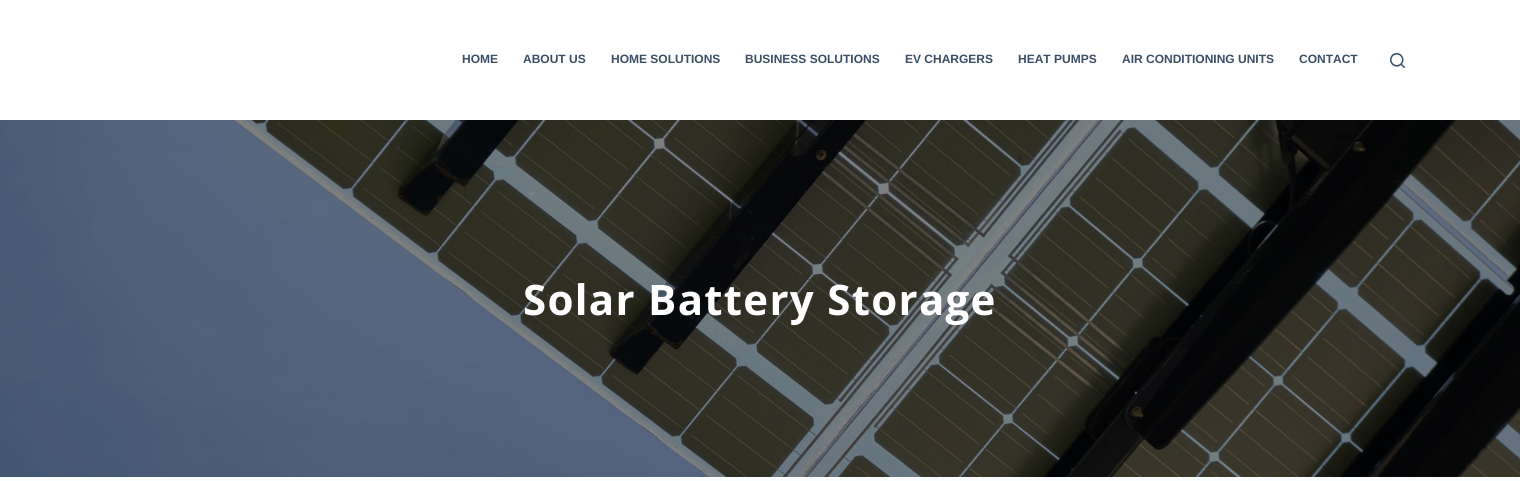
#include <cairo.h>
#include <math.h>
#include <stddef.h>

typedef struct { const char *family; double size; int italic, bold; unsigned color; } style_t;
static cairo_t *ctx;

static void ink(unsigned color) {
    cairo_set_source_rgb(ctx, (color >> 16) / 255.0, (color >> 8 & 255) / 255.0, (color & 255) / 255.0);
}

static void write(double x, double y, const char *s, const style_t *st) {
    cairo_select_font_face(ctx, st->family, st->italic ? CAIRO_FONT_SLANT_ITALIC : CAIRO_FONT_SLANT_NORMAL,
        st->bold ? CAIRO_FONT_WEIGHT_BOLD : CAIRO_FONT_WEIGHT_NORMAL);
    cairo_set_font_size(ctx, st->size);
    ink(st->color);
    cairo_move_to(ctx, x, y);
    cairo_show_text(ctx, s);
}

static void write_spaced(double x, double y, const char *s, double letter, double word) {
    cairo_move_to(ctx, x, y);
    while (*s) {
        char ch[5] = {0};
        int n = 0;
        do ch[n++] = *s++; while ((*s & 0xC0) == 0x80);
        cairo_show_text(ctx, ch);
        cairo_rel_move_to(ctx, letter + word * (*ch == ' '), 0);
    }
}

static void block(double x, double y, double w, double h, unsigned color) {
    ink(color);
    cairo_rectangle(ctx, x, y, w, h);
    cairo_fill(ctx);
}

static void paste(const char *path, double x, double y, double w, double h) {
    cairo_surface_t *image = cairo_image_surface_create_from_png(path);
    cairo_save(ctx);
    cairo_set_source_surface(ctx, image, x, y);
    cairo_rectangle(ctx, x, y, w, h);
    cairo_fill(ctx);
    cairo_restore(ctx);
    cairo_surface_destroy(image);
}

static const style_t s1 = {"Liberation Sans", 12, 0, 1, 0x3a4f66};

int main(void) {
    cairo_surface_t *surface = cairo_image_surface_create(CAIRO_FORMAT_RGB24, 1520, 481);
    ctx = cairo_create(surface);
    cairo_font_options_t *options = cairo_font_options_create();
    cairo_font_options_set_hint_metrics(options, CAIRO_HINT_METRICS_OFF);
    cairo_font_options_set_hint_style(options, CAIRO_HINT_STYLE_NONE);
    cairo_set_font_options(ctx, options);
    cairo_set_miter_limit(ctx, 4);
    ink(0xfafbfc);
    cairo_paint(ctx);
    block(0, 0, 1520, 120, 0xffffff);
    write(462, 63, "HOME", &s1);
    write(523, 63, "ABOUT US", &s1);
    write(611, 63, "HOME SOLUTIONS", &s1);
    write(745, 63, "BUSINESS SOLUTIONS", &s1);
    write(905, 63, "EV CHARGERS", &s1);
    write(1018, 63, "HEAT PUMPS", &s1);
    write(1122, 63, "AIR CONDITIONING UNITS", &s1);
    write(1299, 63, "CONTACT", &s1);
    paste("pic1.png", 1390, 53, 15, 15);
    paste("pic2.png", 0, 120, 1520, 357);
    cairo_select_font_face(ctx, "Open Sans", CAIRO_FONT_SLANT_NORMAL, CAIRO_FONT_WEIGHT_BOLD);
    cairo_set_font_size(ctx, 42);
    ink(0xffffff);
    write_spaced(523, 315, "Solar Battery Storage", 1.3, 0);
    cairo_surface_write_to_png(surface, "screenshot.png");
    cairo_font_options_destroy(options);
    cairo_destroy(ctx);
    cairo_surface_destroy(surface);
    return 0;
}
